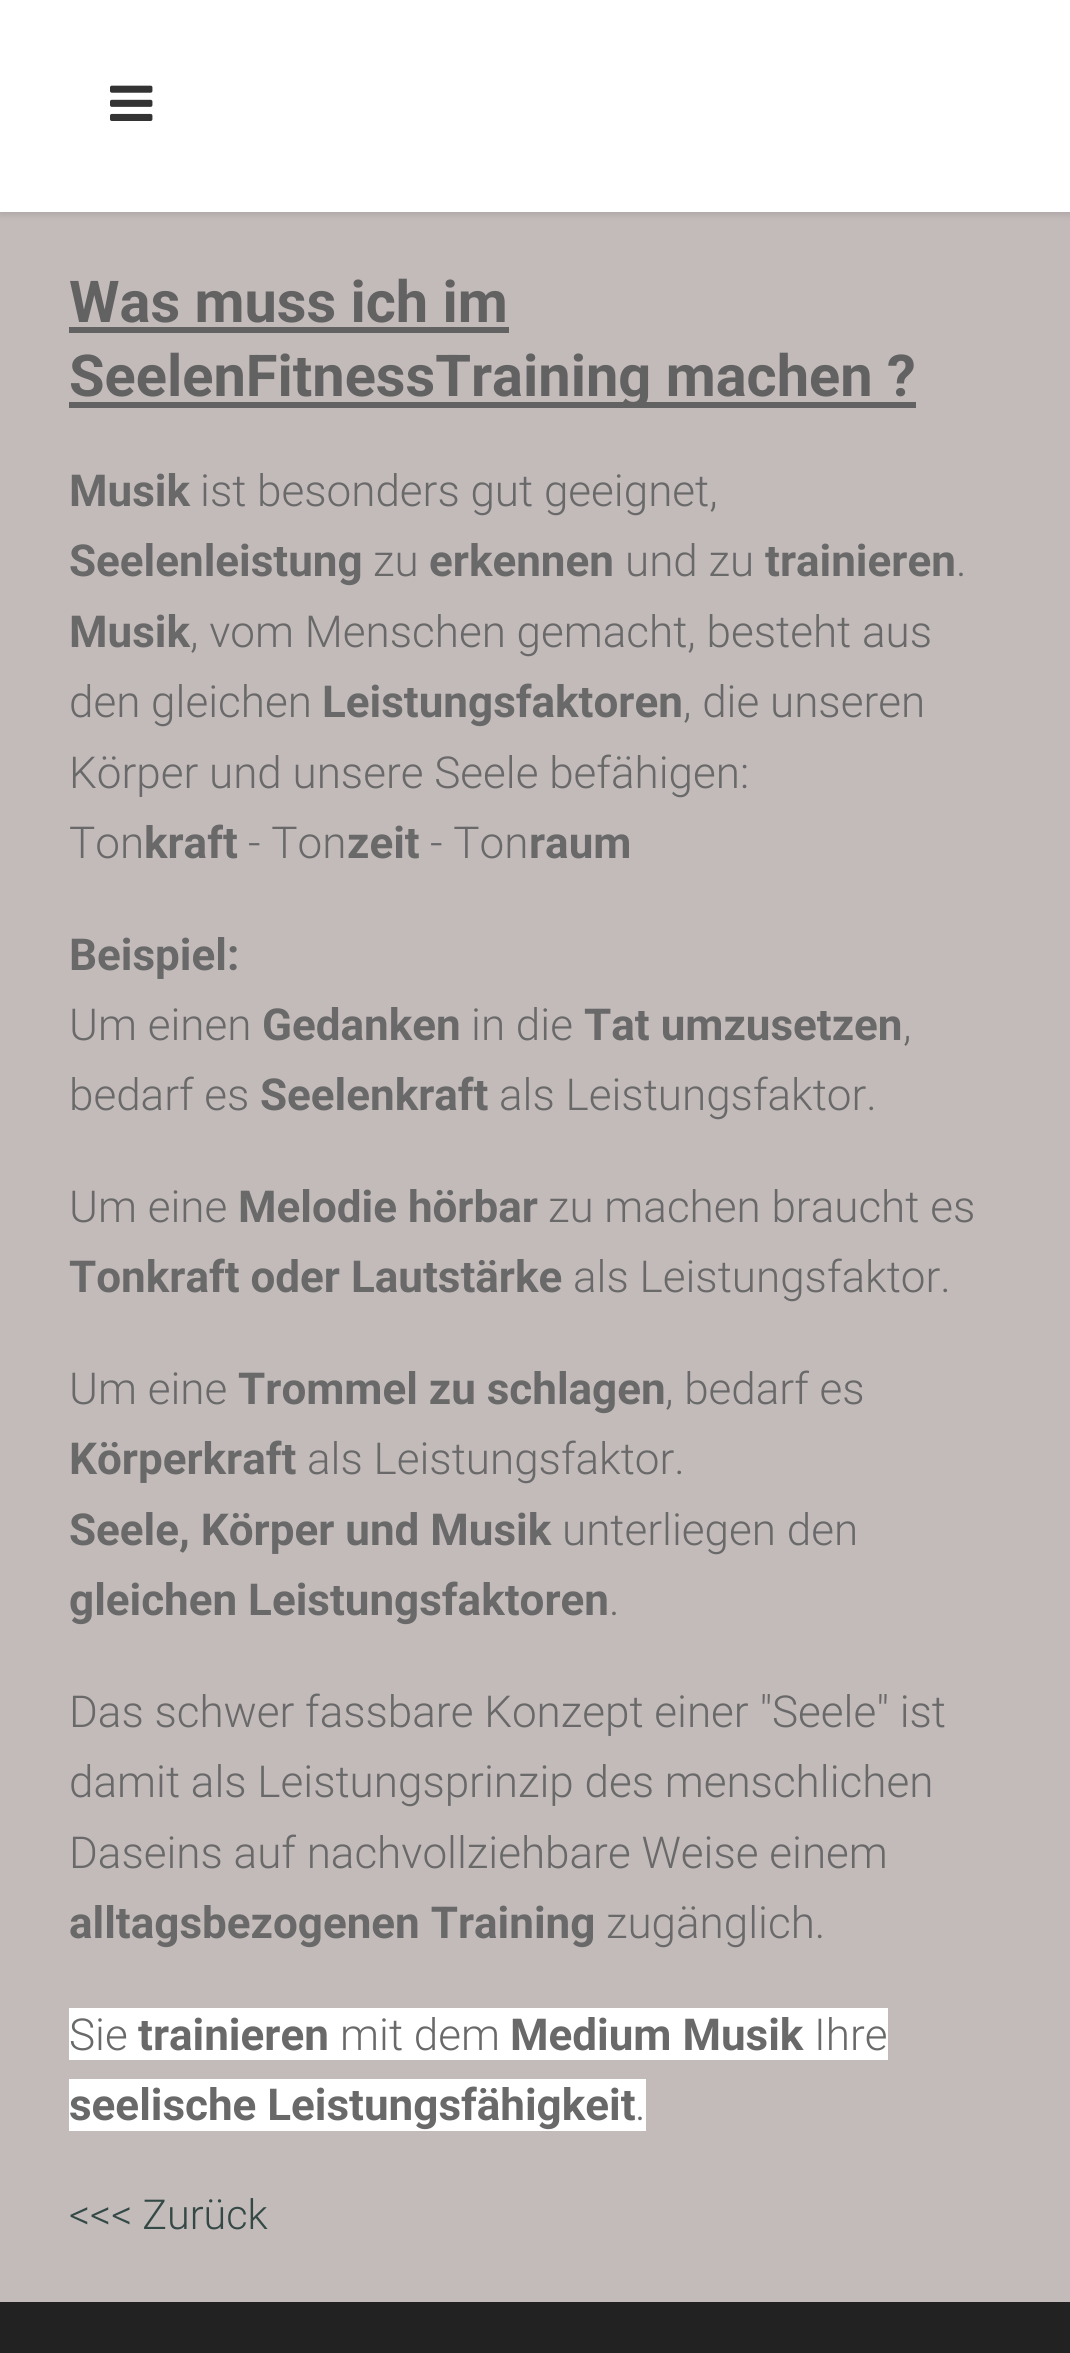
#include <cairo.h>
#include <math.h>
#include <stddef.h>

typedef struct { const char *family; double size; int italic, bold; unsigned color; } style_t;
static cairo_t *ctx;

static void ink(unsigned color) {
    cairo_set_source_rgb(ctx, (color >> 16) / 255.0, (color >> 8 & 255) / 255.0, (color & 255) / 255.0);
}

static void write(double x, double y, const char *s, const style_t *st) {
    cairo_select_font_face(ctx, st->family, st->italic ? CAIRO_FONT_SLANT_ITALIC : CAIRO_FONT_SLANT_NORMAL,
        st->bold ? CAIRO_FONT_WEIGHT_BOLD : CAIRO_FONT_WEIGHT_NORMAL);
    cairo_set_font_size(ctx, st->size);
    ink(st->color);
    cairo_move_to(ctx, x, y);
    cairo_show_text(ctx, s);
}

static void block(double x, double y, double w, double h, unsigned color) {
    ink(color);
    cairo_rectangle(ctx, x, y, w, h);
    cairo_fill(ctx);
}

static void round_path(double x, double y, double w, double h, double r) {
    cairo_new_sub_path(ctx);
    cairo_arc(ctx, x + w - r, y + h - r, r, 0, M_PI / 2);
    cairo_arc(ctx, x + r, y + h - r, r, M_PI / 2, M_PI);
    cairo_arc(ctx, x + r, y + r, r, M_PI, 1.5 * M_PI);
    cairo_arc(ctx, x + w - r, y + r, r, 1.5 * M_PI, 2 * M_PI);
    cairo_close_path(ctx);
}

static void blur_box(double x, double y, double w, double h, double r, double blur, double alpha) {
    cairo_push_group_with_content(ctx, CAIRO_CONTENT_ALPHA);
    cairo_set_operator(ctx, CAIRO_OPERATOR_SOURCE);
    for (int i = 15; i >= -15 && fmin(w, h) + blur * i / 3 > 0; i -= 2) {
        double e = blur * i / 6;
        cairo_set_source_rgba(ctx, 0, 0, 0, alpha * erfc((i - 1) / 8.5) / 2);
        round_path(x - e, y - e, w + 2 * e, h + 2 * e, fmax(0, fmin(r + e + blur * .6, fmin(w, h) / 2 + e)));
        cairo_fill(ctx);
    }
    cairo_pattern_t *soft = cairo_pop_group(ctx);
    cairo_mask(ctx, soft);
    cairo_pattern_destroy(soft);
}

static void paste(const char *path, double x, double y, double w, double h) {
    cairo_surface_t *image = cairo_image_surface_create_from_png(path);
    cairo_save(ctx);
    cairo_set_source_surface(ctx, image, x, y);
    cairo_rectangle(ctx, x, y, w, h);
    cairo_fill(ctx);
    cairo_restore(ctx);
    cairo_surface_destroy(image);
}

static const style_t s1 = {"Roboto", 57.75, 0, 1, 0x626262};
static const style_t s2 = {"Roboto", 44, 0, 1, 0x696969};
static const style_t s3 = {"Roboto Light", 44, 0, 0, 0x696969};
static const style_t s4 = {"Roboto Light", 41.25, 0, 0, 0x344946};

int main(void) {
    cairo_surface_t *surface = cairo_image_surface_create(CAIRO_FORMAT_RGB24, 1070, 2353);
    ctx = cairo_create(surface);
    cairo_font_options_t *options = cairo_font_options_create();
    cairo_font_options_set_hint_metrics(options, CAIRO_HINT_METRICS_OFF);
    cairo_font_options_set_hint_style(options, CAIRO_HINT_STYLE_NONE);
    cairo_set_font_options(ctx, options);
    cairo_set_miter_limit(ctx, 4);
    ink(0x222222);
    cairo_paint(ctx);
    block(0, 212, 1070, 2090, 0xc3baba);
    ink(0x000000);
    blur_box(0, 3, 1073, 212, 0, 3, 0.1);
    block(0, 0, 1070, 212, 0xffffff);
    paste("pic1.png", 110, 85, 43, 36);
    write(69, 322, "Was muss ich im", &s1);
    block(69, 327, 440, 6, 0x626262);
    block(69, 402, 847, 6, 0x626262);
    write(69, 396, "SeelenFitnessTraining machen ?", &s1);
    write(69, 506, "Musik", &s2);
    write(200, 506, "ist besonders gut geeignet,", &s3);
    write(69, 576, "Seelenleistung", &s2);
    write(373, 576, "zu", &s3);
    write(429, 576, "erkennen", &s2);
    write(625, 576, "und zu", &s3);
    write(765, 576, "trainieren", &s2);
    write(956, 576, ".", &s3);
    write(69, 647, "Musik", &s2);
    write(190, 647, ", vom Menschen gemacht, besteht aus", &s3);
    write(69, 717, "den gleichen", &s3);
    write(322, 717, "Leistungsfaktoren", &s2);
    write(683, 717, ", die unseren", &s3);
    write(69, 788, "Körper und unsere Seele befähigen:", &s3);
    write(69, 858, "Ton", &s3);
    write(144, 858, "kraft", &s2);
    write(248, 858, "- Ton", &s3);
    write(347, 858, "zeit", &s2);
    write(430, 858, "- Ton", &s3);
    write(529, 858, "raum", &s2);
    write(69, 970, "Beispiel:", &s2);
    write(69, 1040, "Um einen", &s3);
    write(262, 1040, "Gedanken", &s2);
    write(471, 1040, "in die", &s3);
    write(584, 1040, "Tat umzusetzen", &s2);
    write(903, 1040, ",", &s3);
    write(69, 1110, "bedarf es", &s3);
    write(260, 1110, "Seelenkraft", &s2);
    write(499, 1110, "als Leistungsfaktor.", &s3);
    write(69, 1222, "Um eine", &s3);
    write(238, 1222, "Melodie hörbar", &s2);
    write(548, 1222, "zu machen braucht es", &s3);
    write(69, 1292, "Tonkraft oder Lautstärke", &s2);
    write(573, 1292, "als Leistungsfaktor.", &s3);
    write(69, 1404, "Um eine", &s3);
    write(238, 1404, "Trommel zu schlagen", &s2);
    write(665, 1404, ", bedarf es", &s3);
    write(69, 1474, "Körperkraft", &s2);
    write(307, 1474, "als Leistungsfaktor.", &s3);
    write(69, 1545, "Seele, Körper und Musik", &s2);
    write(562, 1545, "unterliegen den", &s3);
    write(69, 1615, "gleichen Leistungsfaktoren", &s2);
    write(609, 1615, ".", &s3);
    write(69, 1727, "Das schwer fassbare Konzept einer \"Seele\" ist", &s3);
    write(69, 1797, "damit als Leistungsprinzip des menschlichen", &s3);
    write(69, 1868, "Daseins auf nachvollziehbare Weise einem", &s3);
    write(69, 1938, "alltagsbezogenen Training", &s2);
    write(606, 1938, "zugänglich.", &s3);
    block(69, 2008, 819, 52, 0xffffff);
    write(69, 2050, "Sie", &s3);
    write(138, 2050, "trainieren", &s2);
    write(340, 2050, "mit dem", &s3);
    write(510, 2050, "Medium Musik", &s2);
    write(814, 2050, "Ihre", &s3);
    block(69, 2079, 577, 52, 0xffffff);
    write(69, 2120, "seelische Leistungsfähigkeit", &s2);
    write(635, 2120, ".", &s3);
    write(69, 2229, "<<< Zurück", &s4);
    cairo_surface_write_to_png(surface, "screenshot.png");
    cairo_font_options_destroy(options);
    cairo_destroy(ctx);
    cairo_surface_destroy(surface);
    return 0;
}
